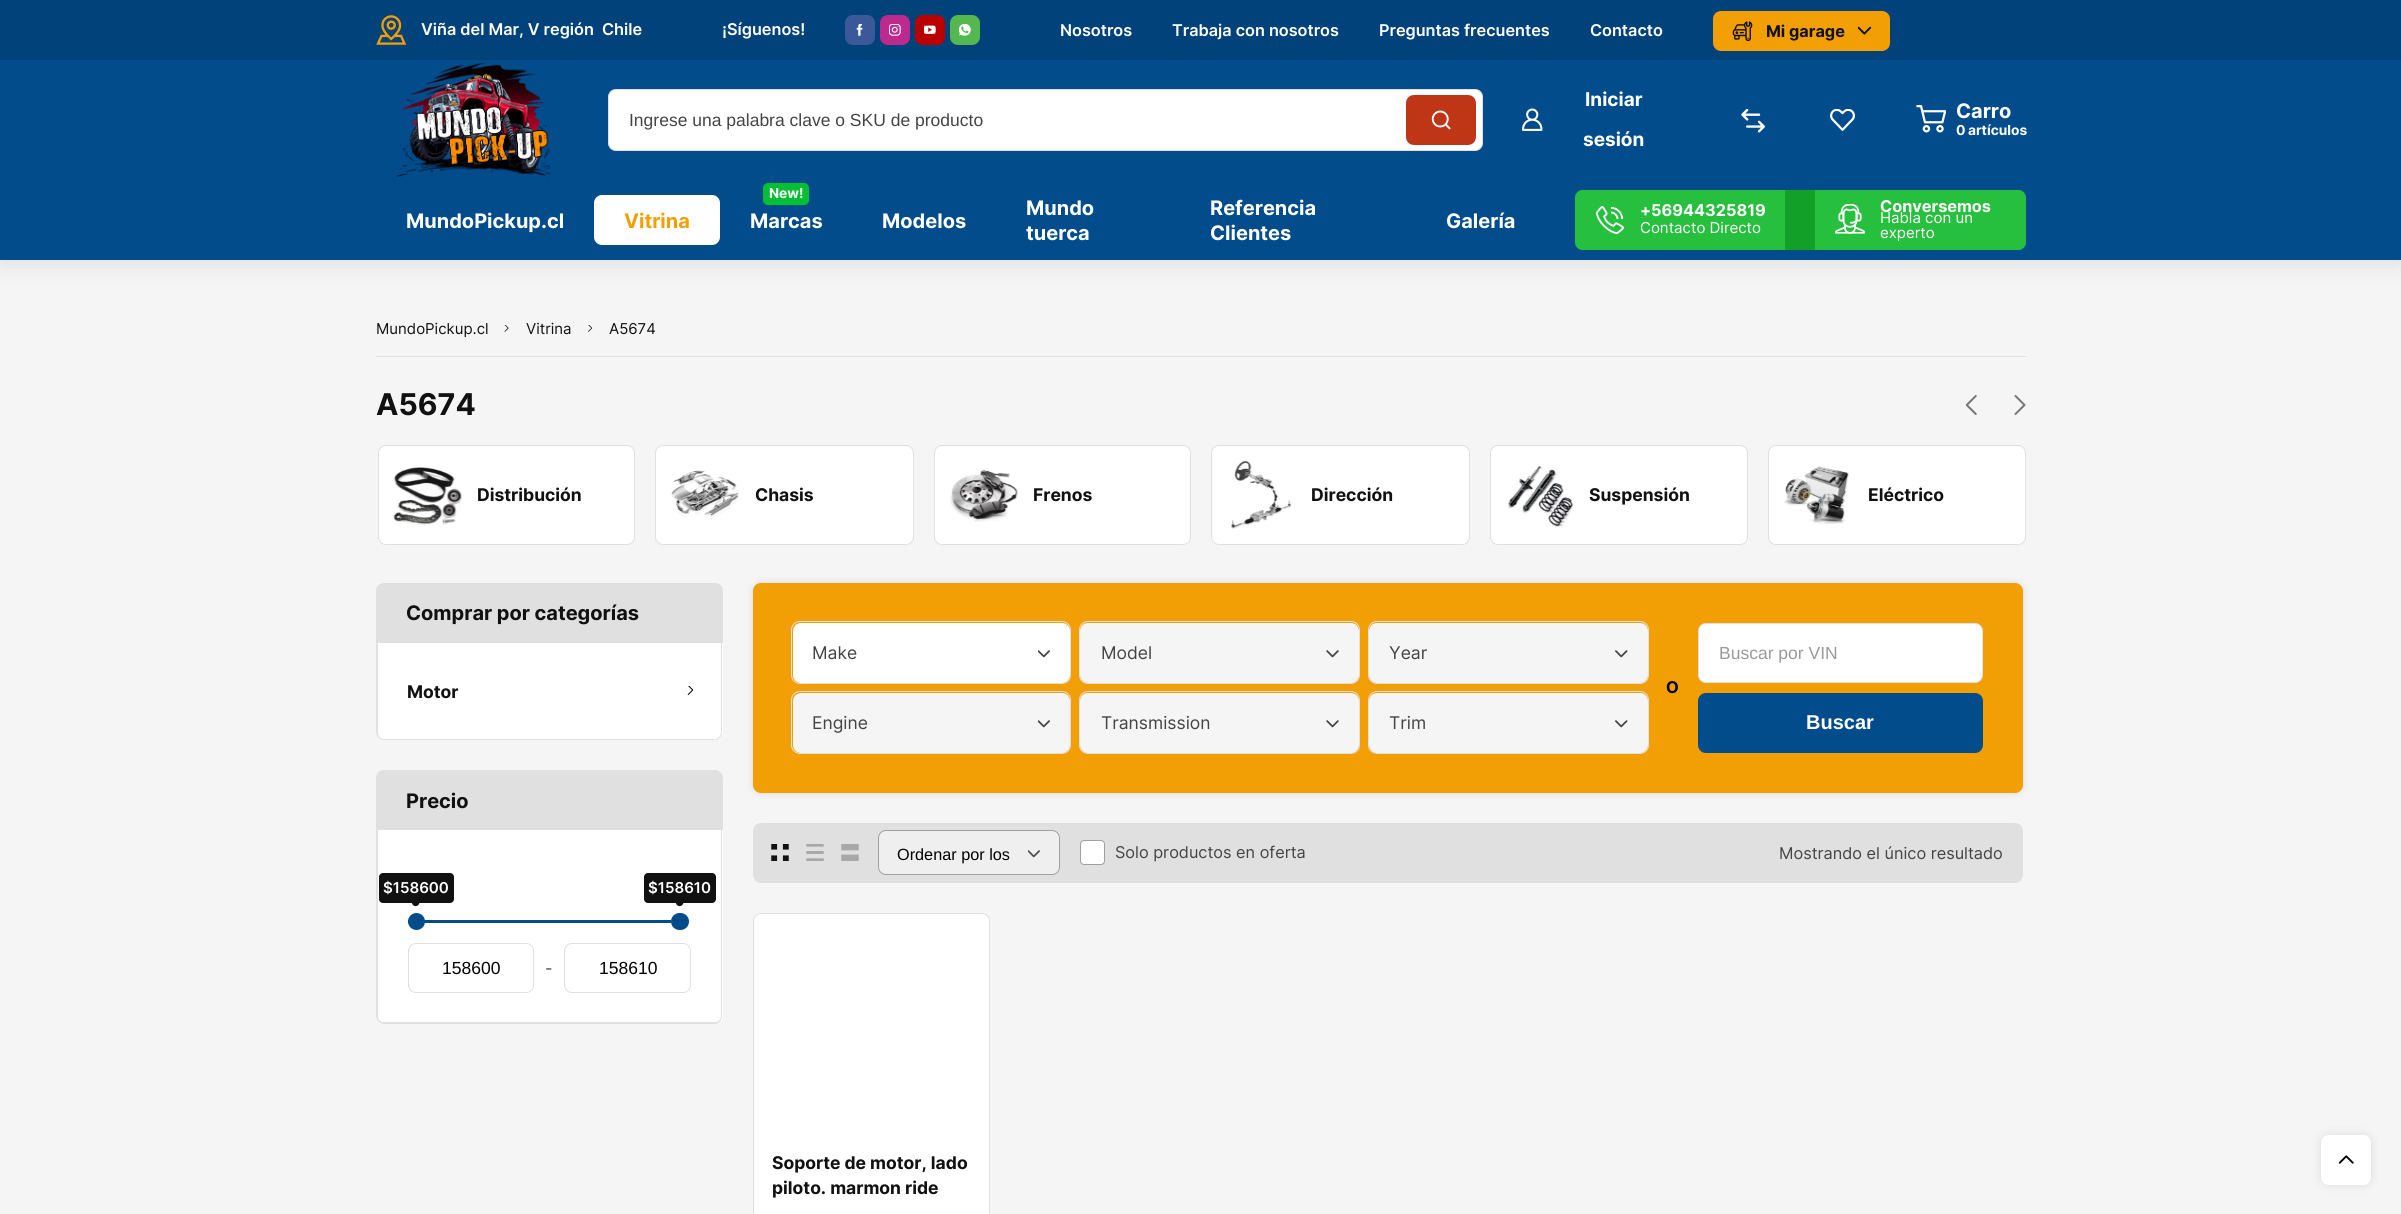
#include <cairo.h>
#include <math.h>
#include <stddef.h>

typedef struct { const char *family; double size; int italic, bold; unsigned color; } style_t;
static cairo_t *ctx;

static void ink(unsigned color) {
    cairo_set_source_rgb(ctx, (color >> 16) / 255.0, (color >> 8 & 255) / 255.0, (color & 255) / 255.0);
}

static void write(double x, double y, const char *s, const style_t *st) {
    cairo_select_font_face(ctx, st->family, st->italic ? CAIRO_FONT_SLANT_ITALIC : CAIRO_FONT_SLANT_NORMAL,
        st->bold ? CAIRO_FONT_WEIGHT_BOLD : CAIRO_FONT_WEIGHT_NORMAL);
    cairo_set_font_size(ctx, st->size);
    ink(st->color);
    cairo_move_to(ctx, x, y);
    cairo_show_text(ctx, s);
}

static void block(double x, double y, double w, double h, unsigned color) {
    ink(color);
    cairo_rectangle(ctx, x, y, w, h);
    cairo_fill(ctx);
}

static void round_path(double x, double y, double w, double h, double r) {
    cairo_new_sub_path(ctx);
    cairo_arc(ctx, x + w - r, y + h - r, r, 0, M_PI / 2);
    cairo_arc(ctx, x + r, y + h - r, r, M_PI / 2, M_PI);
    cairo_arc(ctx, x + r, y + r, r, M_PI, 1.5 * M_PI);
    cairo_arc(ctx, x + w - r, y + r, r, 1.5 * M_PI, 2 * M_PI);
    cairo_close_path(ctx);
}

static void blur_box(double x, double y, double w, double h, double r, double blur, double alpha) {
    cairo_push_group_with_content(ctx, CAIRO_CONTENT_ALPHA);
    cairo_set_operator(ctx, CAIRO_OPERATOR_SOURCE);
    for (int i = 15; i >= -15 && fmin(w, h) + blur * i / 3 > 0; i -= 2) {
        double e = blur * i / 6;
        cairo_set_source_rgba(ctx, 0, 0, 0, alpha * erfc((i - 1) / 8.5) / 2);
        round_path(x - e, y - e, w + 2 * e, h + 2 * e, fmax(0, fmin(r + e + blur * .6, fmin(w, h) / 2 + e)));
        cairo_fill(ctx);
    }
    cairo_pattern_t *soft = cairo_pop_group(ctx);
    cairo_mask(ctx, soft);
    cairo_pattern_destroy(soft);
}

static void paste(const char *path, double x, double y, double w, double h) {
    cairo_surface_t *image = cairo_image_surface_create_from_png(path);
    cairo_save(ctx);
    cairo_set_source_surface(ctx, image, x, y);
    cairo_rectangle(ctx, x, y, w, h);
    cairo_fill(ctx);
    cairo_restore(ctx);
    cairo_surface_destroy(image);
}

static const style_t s1 = {"Inter SemiBold", 16.25, 0, 0, 0xffffff};
static const style_t s2 = {"Inter", 16.25, 0, 1, 0x111111};
static const style_t s3 = {"Liberation Sans", 17.5, 0, 0, 0x444444};
static const style_t s4 = {"Inter", 19, 0, 1, 0xffffff};
static const style_t s5 = {"Inter", 20, 0, 1, 0xffffff};
static const style_t s6 = {"Inter", 13.75, 0, 1, 0xffffff};
static const style_t s7 = {"Inter", 20, 0, 1, 0xf29f05};
static const style_t s8 = {"Inter", 16.25, 0, 1, 0xffffff};
static const style_t s9 = {"Inter", 15, 0, 0, 0xffffff};
static const style_t s10 = {"Inter", 15, 0, 0, 0x111111};
static const style_t s11 = {"Inter", 30, 0, 1, 0x111111};
static const style_t s12 = {"Inter", 17.5, 0, 1, 0x111111};
static const style_t s13 = {"Inter", 20, 0, 1, 0x111111};
static const style_t s14 = {"Inter SemiBold", 15, 0, 0, 0xffffff};
static const style_t s15 = {"Liberation Sans", 17.5, 0, 0, 0x000000};
static const style_t s16 = {"Inter", 16.25, 0, 0, 0x444444};
static const style_t s17 = {"Inter", 17.5, 0, 0, 0x444444};
static const style_t s18 = {"Liberation Sans", 17.5, 0, 0, 0x9a9a9a};
static const style_t s19 = {"Inter", 16.25, 0, 1, 0x000000};
static const style_t s20 = {"Liberation Sans", 20, 0, 1, 0xffffff};
static const style_t s21 = {"Liberation Sans", 16.25, 0, 0, 0x000000};

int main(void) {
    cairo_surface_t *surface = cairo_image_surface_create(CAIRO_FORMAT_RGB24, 2401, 1214);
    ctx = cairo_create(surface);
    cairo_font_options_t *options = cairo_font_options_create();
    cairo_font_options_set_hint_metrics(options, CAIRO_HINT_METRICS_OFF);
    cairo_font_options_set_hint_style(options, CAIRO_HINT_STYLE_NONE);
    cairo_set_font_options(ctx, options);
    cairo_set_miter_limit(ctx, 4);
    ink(0xf5f5f5);
    cairo_paint(ctx);
    ink(0x000000);
    blur_box(0, 3, 2401, 260, 0, 12.5, 0.1);
    block(0, 0, 2401, 60, 0x02427a);
    paste("pic1.png", 376, 15, 30, 30);
    write(421, 35, "Viña del Mar, V región  Chile", &s1);
    write(722, 35, "¡Síguenos!", &s1);
    ink(0x3b5998);
    round_path(845, 15, 30, 30, 8);
    cairo_fill(ctx);
    paste("pic2.png", 856, 24, 7, 12);
    ink(0xbc2a8d);
    round_path(880, 15, 30, 30, 8);
    cairo_fill(ctx);
    paste("pic3.png", 889, 24, 12, 12);
    ink(0xbb0000);
    round_path(915, 15, 30, 30, 8);
    cairo_fill(ctx);
    paste("pic4.png", 924, 25, 12, 9);
    ink(0x55b750);
    round_path(950, 15, 30, 30, 8);
    cairo_fill(ctx);
    paste("pic5.png", 959, 24, 12, 12);
    write(1060, 36, "Nosotros", &s1);
    write(1172, 36, "Trabaja con nosotros", &s1);
    write(1379, 36, "Preguntas frecuentes", &s1);
    write(1590, 36, "Contacto", &s1);
    ink(0xf29f05);
    round_path(1713, 11, 177, 40, 8);
    cairo_fill(ctx);
    paste("pic6.png", 1732, 21, 21, 21);
    write(1766, 37, "Mi garage", &s2);
    paste("pic7.png", 1858, 26, 13, 9);
    block(0, 60, 2401, 200, 0x034c8c);
    paste("pic8.png", 396, 62, 155, 116);
    ink(0xffffff);
    round_path(608.5, 89.5, 874, 61, 7.5);
    cairo_fill_preserve(ctx);
    ink(0xe0e0e0);
    cairo_set_line_width(ctx, 1);
    cairo_stroke(ctx);
    write(629, 126, "Ingrese una palabra clave o SKU de producto", &s3);
    ink(0xbf3617);
    round_path(1406, 95, 70, 50, 8);
    cairo_fill(ctx);
    paste("pic9.png", 1431, 110, 20, 20);
    paste("pic10.png", 1522, 108, 21, 23);
    write(1585, 106, "Iniciar", &s4);
    write(1583, 146, "sesión", &s4);
    paste("pic11.png", 1741, 109, 24, 24);
    paste("pic12.png", 1830, 109, 25, 22);
    paste("pic13.png", 1916, 105, 30, 28);
    write(1956, 118, "Carro", &s5);
    write(1956, 135, "0", &s6);
    write(1968, 135, "artículos", &s6);
    write(406, 228, "MundoPickup.cl", &s5);
    round_path(595.5, 196.5, 123, 47, 6.5);
    cairo_fill_preserve(ctx);
    cairo_set_line_width(ctx, 3);
    cairo_stroke(ctx);
    write(624, 228, "Vitrina", &s7);
    ink(0x04bf33);
    round_path(763, 183, 46, 22, 5);
    cairo_fill(ctx);
    write(769, 198, "New!", &s6);
    write(750, 228, "Marcas", &s5);
    write(882, 228, "Modelos", &s5);
    write(1026, 215, "Mundo", &s5);
    write(1026, 240, "tuerca", &s5);
    write(1210, 215, "Referencia", &s5);
    write(1210, 240, "Clientes", &s5);
    write(1446, 228, "Galería", &s5);
    ink(0x12a028);
    round_path(1575, 190, 451, 60, 8);
    cairo_fill(ctx);
    ink(0x27bf3e);
    cairo_new_path(ctx);
    cairo_move_to(ctx, 1583, 190);
    cairo_line_to(ctx, 1785, 190);
    cairo_line_to(ctx, 1785, 250);
    cairo_line_to(ctx, 1583, 250);
    cairo_curve_to(ctx, 1578.5, 250, 1575, 246.5, 1575, 242);
    cairo_line_to(ctx, 1575, 198);
    cairo_curve_to(ctx, 1575, 193.5, 1578.5, 190, 1583, 190);
    cairo_close_path(ctx);
    cairo_fill(ctx);
    paste("pic14.png", 1596, 206, 28, 28);
    write(1640, 216, "+56944325819", &s8);
    write(1640, 233, "Contacto Directo", &s9);
    ink(0x27bf3e);
    cairo_new_path(ctx);
    cairo_move_to(ctx, 1815, 190);
    cairo_line_to(ctx, 2018, 190);
    cairo_curve_to(ctx, 2022.5, 190, 2026, 193.5, 2026, 198);
    cairo_line_to(ctx, 2026, 242);
    cairo_curve_to(ctx, 2026, 246.5, 2022.5, 250, 2018, 250);
    cairo_line_to(ctx, 1815, 250);
    cairo_close_path(ctx);
    cairo_fill(ctx);
    paste("pic15.png", 1835, 204, 30, 30);
    write(1880, 212, "Conversemos", &s8);
    write(1880, 223, "Habla con un", &s9);
    write(1880, 238, "experto", &s9);
    block(376, 356, 1650, 1, 0xe0e0e0);
    write(376, 334, "MundoPickup.cl", &s10);
    paste("pic16.png", 504, 325, 5, 7);
    write(526, 334, "Vitrina", &s10);
    paste("pic17.png", 588, 325, 5, 7);
    write(609, 334, "A5674", &s10);
    write(376, 415, "A5674", &s11);
    paste("pic18.png", 1965, 395, 12, 20);
    paste("pic19.png", 2014, 395, 12, 20);
    ink(0xffffff);
    round_path(378.5, 445.5, 256, 99, 7.5);
    cairo_fill_preserve(ctx);
    ink(0xe0e0e0);
    cairo_set_line_width(ctx, 1);
    cairo_stroke(ctx);
    paste("pic20.png", 393, 467, 69, 58);
    write(477, 501, "Distribución", &s12);
    ink(0xffffff);
    round_path(655.5, 445.5, 258, 99, 7.5);
    cairo_fill_preserve(ctx);
    ink(0xe0e0e0);
    cairo_stroke(ctx);
    paste("pic21.png", 671, 470, 68, 49);
    write(755, 501, "Chasis", &s12);
    ink(0xffffff);
    round_path(934.5, 445.5, 256, 99, 7.5);
    cairo_fill_preserve(ctx);
    ink(0xe0e0e0);
    cairo_stroke(ctx);
    paste("pic22.png", 950, 470, 68, 52);
    write(1033, 501, "Frenos", &s12);
    ink(0xffffff);
    round_path(1211.5, 445.5, 258, 99, 7.5);
    cairo_fill_preserve(ctx);
    ink(0xe0e0e0);
    cairo_stroke(ctx);
    paste("pic23.png", 1231, 460, 61, 69);
    write(1311, 501, "Dirección", &s12);
    ink(0xffffff);
    round_path(1490.5, 445.5, 257, 99, 7.5);
    cairo_fill_preserve(ctx);
    ink(0xe0e0e0);
    cairo_stroke(ctx);
    paste("pic24.png", 1507, 465, 67, 62);
    write(1589, 501, "Suspensión", &s12);
    ink(0xffffff);
    round_path(1768.5, 445.5, 257, 99, 7.5);
    cairo_fill_preserve(ctx);
    ink(0xe0e0e0);
    cairo_stroke(ctx);
    paste("pic25.png", 1784, 466, 65, 58);
    write(1868, 501, "Eléctrico", &s12);
    ink(0xe0e0e0);
    cairo_new_path(ctx);
    cairo_move_to(ctx, 384, 583);
    cairo_line_to(ctx, 715, 583);
    cairo_curve_to(ctx, 719.5, 583, 723, 586.5, 723, 591);
    cairo_line_to(ctx, 723, 643);
    cairo_line_to(ctx, 376, 643);
    cairo_line_to(ctx, 376, 591);
    cairo_curve_to(ctx, 376, 586.5, 379.5, 583, 384, 583);
    cairo_close_path(ctx);
    cairo_fill(ctx);
    write(406, 620, "Comprar por categorías", &s13);
    ink(0xffffff);
    cairo_new_path(ctx);
    cairo_move_to(ctx, 376, 643);
    cairo_line_to(ctx, 723, 643);
    cairo_line_to(ctx, 723, 732);
    cairo_curve_to(ctx, 723, 736.5, 719.5, 740, 715, 740);
    cairo_line_to(ctx, 384, 740);
    cairo_curve_to(ctx, 379.5, 740, 376, 736.5, 376, 732);
    cairo_close_path(ctx);
    cairo_fill(ctx);
    ink(0xe0e0e0);
    cairo_set_fill_rule(ctx, CAIRO_FILL_RULE_EVEN_ODD);
    cairo_new_path(ctx);
    cairo_move_to(ctx, 376, 642);
    cairo_line_to(ctx, 722, 642);
    cairo_line_to(ctx, 722, 732);
    cairo_curve_to(ctx, 722, 737, 719, 740, 715, 740);
    cairo_line_to(ctx, 384, 740);
    cairo_curve_to(ctx, 380, 740, 376, 737, 376, 732);
    cairo_close_path(ctx);
    cairo_move_to(ctx, 378, 642);
    cairo_line_to(ctx, 721, 642);
    cairo_line_to(ctx, 721, 732);
    cairo_curve_to(ctx, 721, 736, 718, 739, 715, 739);
    cairo_line_to(ctx, 384, 739);
    cairo_curve_to(ctx, 380, 739, 378, 736, 378, 732);
    cairo_close_path(ctx);
    cairo_fill(ctx);
    write(407, 698, "Motor", &s12);
    paste("pic26.png", 687, 686, 7, 9);
    ink(0xe0e0e0);
    cairo_new_path(ctx);
    cairo_move_to(ctx, 384, 770);
    cairo_line_to(ctx, 715, 770);
    cairo_curve_to(ctx, 719.5, 770, 723, 773.5, 723, 778);
    cairo_line_to(ctx, 723, 830);
    cairo_line_to(ctx, 376, 830);
    cairo_line_to(ctx, 376, 778);
    cairo_curve_to(ctx, 376, 773.5, 379.5, 770, 384, 770);
    cairo_close_path(ctx);
    cairo_fill(ctx);
    write(406, 808, "Precio", &s13);
    ink(0xffffff);
    cairo_new_path(ctx);
    cairo_move_to(ctx, 376, 830);
    cairo_line_to(ctx, 723, 830);
    cairo_line_to(ctx, 723, 1016);
    cairo_curve_to(ctx, 723, 1020.5, 719.5, 1024, 715, 1024);
    cairo_line_to(ctx, 384, 1024);
    cairo_curve_to(ctx, 379.5, 1024, 376, 1020.5, 376, 1016);
    cairo_close_path(ctx);
    cairo_fill(ctx);
    ink(0xe0e0e0);
    cairo_new_path(ctx);
    cairo_move_to(ctx, 376, 830);
    cairo_line_to(ctx, 722, 830);
    cairo_line_to(ctx, 722, 1016);
    cairo_curve_to(ctx, 722, 1020, 719, 1024, 715, 1024);
    cairo_line_to(ctx, 384, 1024);
    cairo_curve_to(ctx, 380, 1024, 376, 1020, 376, 1016);
    cairo_close_path(ctx);
    cairo_move_to(ctx, 378, 830);
    cairo_line_to(ctx, 721, 830);
    cairo_line_to(ctx, 721, 1016);
    cairo_curve_to(ctx, 721, 1020, 718, 1022, 715, 1022);
    cairo_line_to(ctx, 384, 1022);
    cairo_curve_to(ctx, 380, 1022, 378, 1020, 378, 1016);
    cairo_close_path(ctx);
    cairo_fill(ctx);
    block(408, 920, 263, 3, 0x034c8c);
    cairo_arc(ctx, 416.5, 921.5, 8.5, 0, 2 * M_PI);
    cairo_fill(ctx);
    ink(0x111111);
    round_path(379, 873, 75, 30, 4);
    cairo_fill(ctx);
    write(383, 893, "$158600", &s14);
    ink(0x111111);
    cairo_set_fill_rule(ctx, CAIRO_FILL_RULE_WINDING);
    cairo_new_path(ctx);
    cairo_move_to(ctx, 418.5, 900);
    cairo_curve_to(ctx, 421.5, 903.5, 416.5, 908.5, 413, 905);
    cairo_curve_to(ctx, 409.5, 901.5, 415, 896.5, 418.5, 900);
    cairo_close_path(ctx);
    cairo_fill(ctx);
    ink(0xf2f2f2);
    cairo_new_path(ctx);
    cairo_move_to(ctx, 671, 920);
    cairo_line_to(ctx, 689.5, 920);
    cairo_curve_to(ctx, 690.5, 920, 691, 920.5, 691, 921.5);
    cairo_curve_to(ctx, 691, 922.5, 690.5, 923, 689.5, 923);
    cairo_line_to(ctx, 671, 923);
    cairo_close_path(ctx);
    cairo_fill(ctx);
    ink(0x034c8c);
    round_path(671, 913, 18, 17, 8.5);
    cairo_fill(ctx);
    ink(0x111111);
    round_path(644, 873, 72, 30, 4);
    cairo_fill(ctx);
    write(648, 893, "$158610", &s14);
    ink(0x111111);
    cairo_new_path(ctx);
    cairo_move_to(ctx, 682.5, 900);
    cairo_curve_to(ctx, 685.5, 903.5, 680.5, 908.5, 677, 905);
    cairo_curve_to(ctx, 673.5, 901.5, 679, 896.5, 682.5, 900);
    cairo_close_path(ctx);
    cairo_fill(ctx);
    round_path(408.5, 943.5, 125, 49, 7.5);
    ink(0xe0e0e0);
    cairo_stroke(ctx);
    write(442, 974, "158600", &s15);
    write(545, 974, "-", &s16);
    round_path(564.5, 943.5, 126, 49, 7.5);
    ink(0xe0e0e0);
    cairo_stroke(ctx);
    write(599, 974, "158610", &s15);
    ink(0x000000);
    blur_box(753, 583, 1270, 210, 8, 4, 0.1);
    ink(0xf29f05);
    round_path(753, 583, 1270, 210, 8);
    cairo_fill(ctx);
    ink(0xffffff);
    round_path(793, 623, 277, 60, 8);
    cairo_fill(ctx);
    round_path(791.5, 621.5, 279, 62, 8.5);
    ink(0xe0e0e0);
    cairo_stroke(ctx);
    write(812, 659, "Make", &s17);
    paste("pic27.png", 1038, 650, 12, 8);
    ink(0xf5f5f5);
    round_path(1080, 623, 279, 60, 8);
    cairo_fill(ctx);
    round_path(1079.5, 621.5, 280, 62, 8.5);
    ink(0xe0e0e0);
    cairo_stroke(ctx);
    write(1101, 659, "Model", &s17);
    paste("pic28.png", 1326, 650, 13, 8);
    ink(0xf5f5f5);
    round_path(1369, 623, 279, 60, 8);
    cairo_fill(ctx);
    round_path(1368.5, 621.5, 280, 62, 8.5);
    ink(0xe0e0e0);
    cairo_stroke(ctx);
    write(1389, 659, "Year", &s17);
    paste("pic29.png", 1615, 650, 13, 8);
    ink(0xf5f5f5);
    round_path(793, 693, 277, 60, 8);
    cairo_fill(ctx);
    round_path(791.5, 691.5, 279, 62, 8.5);
    ink(0xe0e0e0);
    cairo_stroke(ctx);
    write(812, 729, "Engine", &s17);
    paste("pic30.png", 1038, 720, 12, 8);
    ink(0xf5f5f5);
    round_path(1080, 693, 279, 60, 8);
    cairo_fill(ctx);
    round_path(1079.5, 691.5, 280, 62, 8.5);
    ink(0xe0e0e0);
    cairo_stroke(ctx);
    write(1101, 729, "Transmission", &s17);
    paste("pic28.png", 1326, 720, 13, 8);
    ink(0xf5f5f5);
    round_path(1369, 693, 279, 60, 8);
    cairo_fill(ctx);
    round_path(1368.5, 691.5, 280, 62, 8.5);
    ink(0xe0e0e0);
    cairo_stroke(ctx);
    write(1389, 729, "Trim", &s17);
    paste("pic29.png", 1615, 720, 13, 8);
    ink(0xffffff);
    round_path(1698.5, 623.5, 284, 59, 7.5);
    cairo_fill_preserve(ctx);
    ink(0xe0e0e0);
    cairo_stroke(ctx);
    write(1719, 659, "Buscar por VIN", &s18);
    write(1666, 693, "O", &s19);
    ink(0x034c8c);
    round_path(1698, 693, 285, 60, 8);
    cairo_fill(ctx);
    write(1806, 729, "Buscar", &s20);
    ink(0xe0e0e0);
    round_path(753, 823, 1270, 60, 8);
    cairo_fill(ctx);
    paste("pic31.png", 771, 844, 18, 17);
    paste("pic32.png", 806, 844, 18, 17);
    paste("pic33.png", 841, 844, 18, 17);
    ink(0xefefef);
    round_path(878, 830, 182, 45, 8);
    cairo_fill(ctx);
    paste("pic34.png", 1028, 850, 12, 8);
    round_path(878.5, 830.5, 181, 44, 7.5);
    ink(0xa0a0a0);
    cairo_stroke(ctx);
    write(897, 860, "Ordenar por los", &s21);
    ink(0xffffff);
    round_path(1080.5, 840.5, 24, 24, 3.5);
    cairo_fill_preserve(ctx);
    ink(0xa0a0a0);
    cairo_stroke(ctx);
    write(1115, 858, "Solo productos en oferta", &s16);
    write(1779, 859, "Mostrando el único resultado", &s16);
    ink(0xffffff);
    round_path(753.5, 913.5, 236, 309, 7.5);
    cairo_fill_preserve(ctx);
    ink(0xe0e0e0);
    cairo_stroke(ctx);
    write(772, 1169, "Soporte de motor, lado", &s12);
    write(772, 1194, "piloto. marmon ride", &s12);
    ink(0x000000);
    blur_box(2321, 1135, 50, 50, 8, 5, 0.1);
    ink(0xffffff);
    round_path(2321, 1135, 50, 50, 8);
    cairo_fill(ctx);
    paste("pic35.png", 2338, 1155, 16, 9);
    cairo_surface_write_to_png(surface, "screenshot.png");
    cairo_font_options_destroy(options);
    cairo_destroy(ctx);
    cairo_surface_destroy(surface);
    return 0;
}
